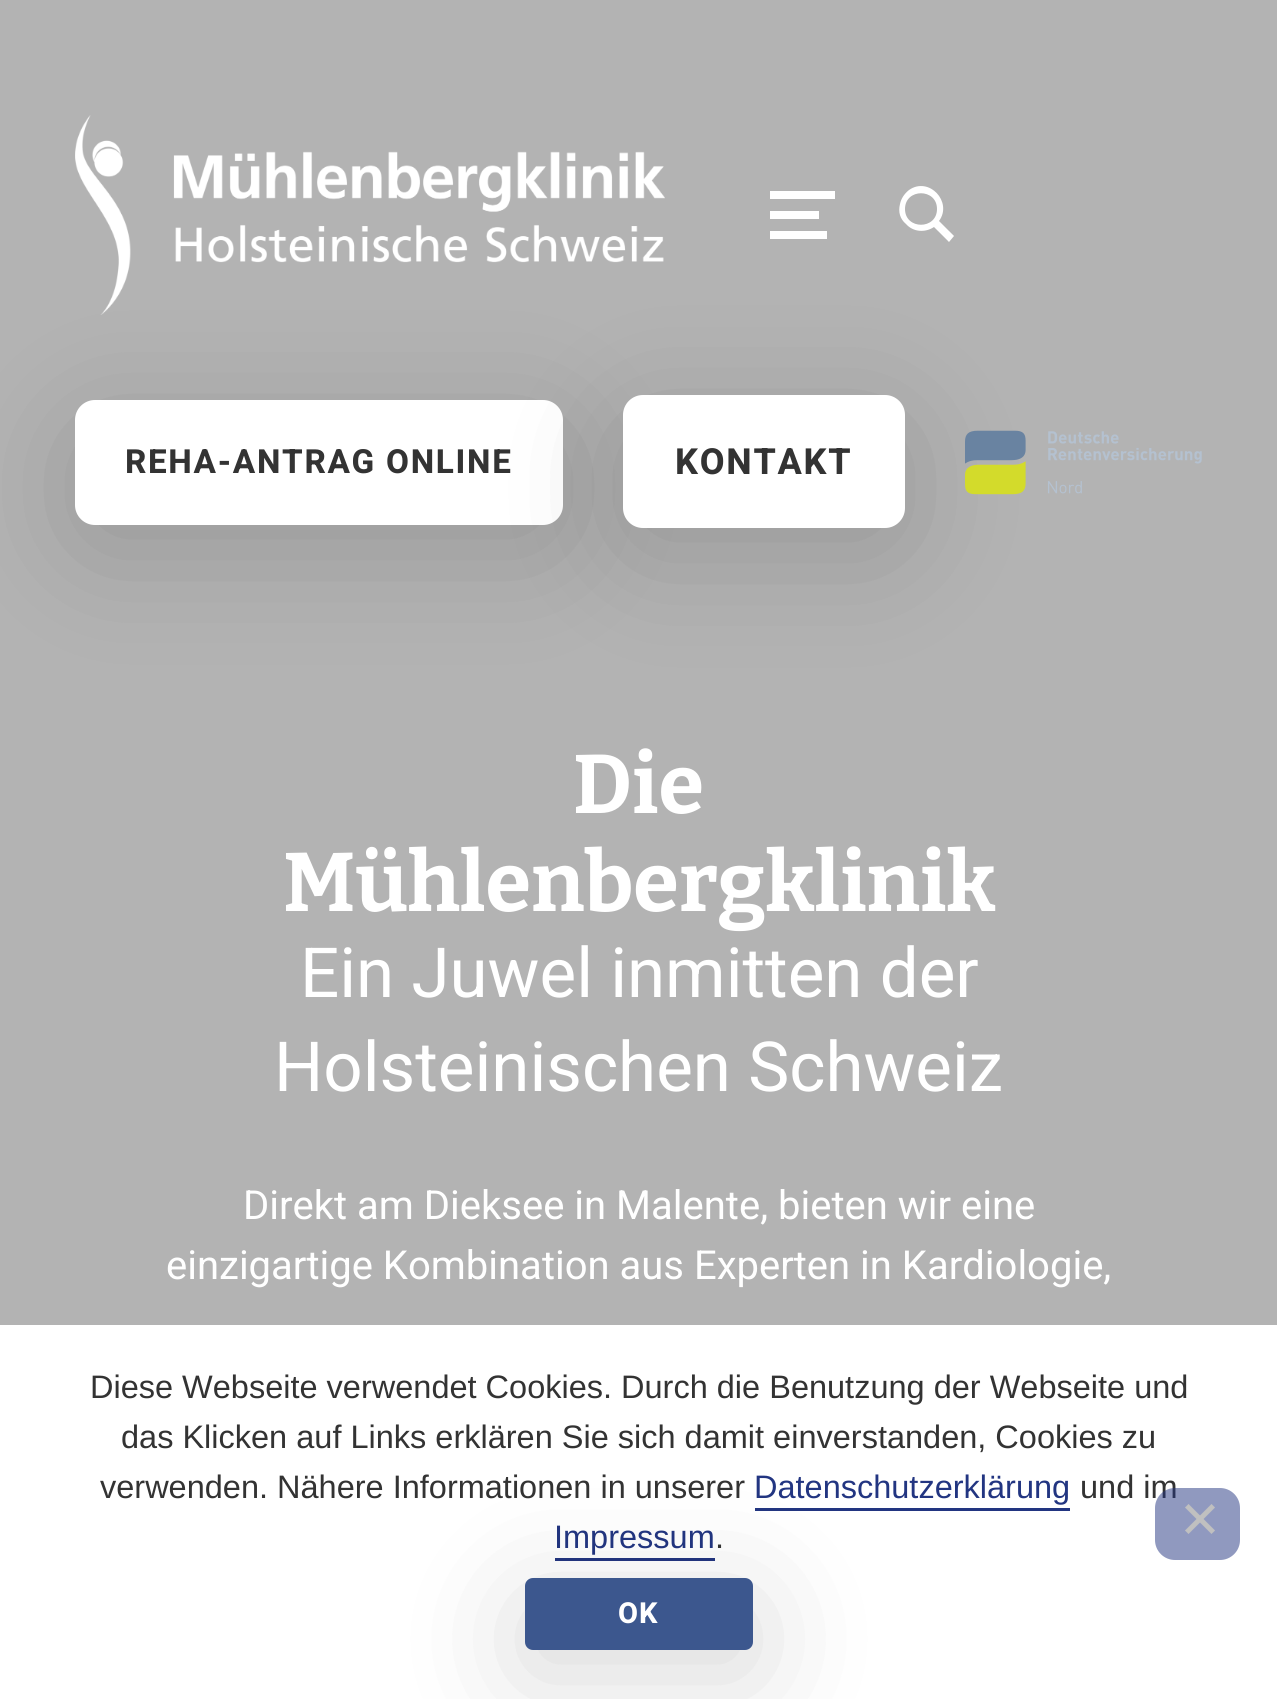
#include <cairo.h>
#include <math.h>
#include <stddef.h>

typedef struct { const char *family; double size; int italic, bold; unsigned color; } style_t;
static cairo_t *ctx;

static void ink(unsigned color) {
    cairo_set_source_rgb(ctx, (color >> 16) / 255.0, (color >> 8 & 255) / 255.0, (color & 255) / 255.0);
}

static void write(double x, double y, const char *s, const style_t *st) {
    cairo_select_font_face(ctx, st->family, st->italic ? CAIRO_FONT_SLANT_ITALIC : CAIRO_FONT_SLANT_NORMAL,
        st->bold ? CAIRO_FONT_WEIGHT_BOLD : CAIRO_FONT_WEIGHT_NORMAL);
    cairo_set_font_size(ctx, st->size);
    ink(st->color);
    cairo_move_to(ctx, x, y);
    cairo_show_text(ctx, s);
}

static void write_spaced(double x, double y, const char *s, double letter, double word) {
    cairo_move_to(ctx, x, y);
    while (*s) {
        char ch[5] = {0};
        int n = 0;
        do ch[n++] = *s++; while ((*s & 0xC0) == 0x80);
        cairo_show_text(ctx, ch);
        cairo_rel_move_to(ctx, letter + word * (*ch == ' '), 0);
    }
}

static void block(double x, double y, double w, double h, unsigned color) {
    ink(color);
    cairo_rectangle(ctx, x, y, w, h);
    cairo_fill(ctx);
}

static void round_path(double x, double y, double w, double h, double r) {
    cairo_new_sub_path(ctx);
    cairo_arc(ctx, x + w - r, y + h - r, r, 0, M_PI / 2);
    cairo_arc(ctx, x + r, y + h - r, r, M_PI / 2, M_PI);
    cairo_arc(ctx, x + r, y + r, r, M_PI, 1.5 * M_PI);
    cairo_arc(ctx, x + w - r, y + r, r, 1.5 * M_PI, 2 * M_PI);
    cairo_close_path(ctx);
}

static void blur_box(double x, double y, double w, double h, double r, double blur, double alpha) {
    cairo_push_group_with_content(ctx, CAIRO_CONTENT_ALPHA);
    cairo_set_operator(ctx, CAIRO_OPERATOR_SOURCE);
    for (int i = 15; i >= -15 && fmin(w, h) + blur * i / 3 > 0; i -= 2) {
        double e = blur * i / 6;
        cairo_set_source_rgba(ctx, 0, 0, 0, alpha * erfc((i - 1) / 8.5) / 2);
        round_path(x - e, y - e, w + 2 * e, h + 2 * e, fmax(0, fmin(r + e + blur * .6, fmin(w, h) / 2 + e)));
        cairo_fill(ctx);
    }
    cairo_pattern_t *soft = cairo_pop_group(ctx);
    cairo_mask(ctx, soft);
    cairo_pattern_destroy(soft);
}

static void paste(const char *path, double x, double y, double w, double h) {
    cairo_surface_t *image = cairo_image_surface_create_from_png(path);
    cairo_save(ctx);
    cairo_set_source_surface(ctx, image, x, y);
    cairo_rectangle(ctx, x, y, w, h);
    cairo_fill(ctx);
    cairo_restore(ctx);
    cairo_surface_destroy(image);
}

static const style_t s1 = {"Bitter Thin", 83, 0, 0, 0xffffff};
static const style_t s2 = {"Heebo", 69.1, 0, 0, 0xffffff};
static const style_t s3 = {"Heebo", 40, 0, 0, 0xffffff};
static const style_t s4 = {"Liberation Sans", 32.5, 0, 0, 0x333333};
static const style_t s5 = {"Liberation Sans", 32.5, 0, 0, 0x223581};

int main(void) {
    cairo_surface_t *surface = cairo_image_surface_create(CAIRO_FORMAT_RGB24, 1277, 1699);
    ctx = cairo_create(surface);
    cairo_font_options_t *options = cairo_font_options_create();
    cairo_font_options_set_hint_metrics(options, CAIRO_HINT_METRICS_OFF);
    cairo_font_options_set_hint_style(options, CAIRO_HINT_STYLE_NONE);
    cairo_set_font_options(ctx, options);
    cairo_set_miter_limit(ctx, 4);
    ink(0xb3b3b3);
    cairo_paint(ctx);
    ink(0x000000);
    blur_box(75, 425, 488, 125, 20, 62.5, 0.15);
    ink(0xffffff);
    cairo_new_path(ctx);
    cairo_move_to(ctx, 954, 236);
    cairo_line_to(ctx, 939, 221);
    cairo_curve_to(ctx, 953, 202, 929, 176, 909, 190);
    cairo_curve_to(ctx, 904, 194, 901, 199, 900, 204);
    cairo_curve_to(ctx, 898, 212, 900, 219, 906, 224);
    cairo_curve_to(ctx, 913, 232, 925, 233, 934, 227);
    cairo_line_to(ctx, 949, 242);
    cairo_close_path(ctx);
    cairo_move_to(ctx, 905, 209);
    cairo_curve_to(ctx, 905, 188, 937, 188, 937, 209);
    cairo_curve_to(ctx, 937, 230, 905, 230, 905, 209);
    cairo_close_path(ctx);
    cairo_fill(ctx);
    round_path(75, 400, 488, 125, 20);
    cairo_fill(ctx);
    ink(0x000000);
    blur_box(623, 420, 282, 133, 20, 62.5, 0.15);
    paste("pic1.png", 75, 115, 590, 200);
    ink(0xffffff);
    cairo_new_path(ctx);
    cairo_move_to(ctx, 770, 191);
    cairo_line_to(ctx, 770, 199);
    cairo_line_to(ctx, 835, 199);
    cairo_line_to(ctx, 835, 191);
    cairo_close_path(ctx);
    cairo_move_to(ctx, 770, 219);
    cairo_line_to(ctx, 819, 219);
    cairo_line_to(ctx, 819, 211);
    cairo_line_to(ctx, 770, 211);
    cairo_close_path(ctx);
    cairo_move_to(ctx, 770, 239);
    cairo_line_to(ctx, 827, 239);
    cairo_line_to(ctx, 827, 231);
    cairo_line_to(ctx, 770, 231);
    cairo_close_path(ctx);
    cairo_fill(ctx);
    cairo_select_font_face(ctx, "Heebo", CAIRO_FONT_SLANT_NORMAL, CAIRO_FONT_WEIGHT_BOLD);
    cairo_set_font_size(ctx, 33.25);
    ink(0x333333);
    write_spaced(125, 473, "REHA-ANTRAG ONLINE", 1.7, 0);
    ink(0xffffff);
    round_path(623, 395, 282, 133, 20);
    cairo_fill(ctx);
    cairo_set_font_size(ctx, 36);
    ink(0x333333);
    write_spaced(675, 474, "KONTAKT", 1.75, 0);
    paste("pic2.png", 965, 430, 237, 65);
    write(573, 813, "Die", &s1);
    write(283, 911, "Mühlenbergklinik", &s1);
    write(300, 997, "Ein Juwel inmitten der", &s2);
    write(274, 1091, "Holsteinischen Schweiz", &s2);
    write(243, 1219, "Direkt am Dieksee in Malente, bieten wir eine", &s3);
    write(166, 1279, "einzigartige Kombination aus Experten in Kardiologie,", &s3);
    block(0, 1325, 1277, 374, 0xffffff);
    write(90, 1398, "Diese Webseite verwendet Cookies. Durch die Benutzung der Webseite und", &s4);
    write(121, 1448, "das Klicken auf Links erklären Sie sich damit einverstanden, Cookies zu", &s4);
    write(100, 1498, "verwenden. Nähere Informationen in unserer", &s4);
    write(754, 1498, "Datenschutzerklärung", &s5);
    block(755, 1508, 315, 3, 0x223581);
    write(1080, 1498, "und im", &s4);
    write(554, 1548, "Impressum", &s5);
    block(555, 1558, 160, 3, 0x223581);
    write(715, 1548, ".", &s4);
    cairo_set_source_rgba(ctx, 0.133, 0.208, 0.506, 0.5);
    round_path(1155, 1488, 85, 72, 20);
    cairo_fill(ctx);
    ink(0xc0c0c0);
    cairo_new_path(ctx);
    cairo_move_to(ctx, 1211.5, 1504);
    cairo_line_to(ctx, 1215, 1507.5);
    cairo_line_to(ctx, 1188.5, 1534);
    cairo_line_to(ctx, 1185, 1530.5);
    cairo_close_path(ctx);
    cairo_fill(ctx);
    cairo_new_path(ctx);
    cairo_move_to(ctx, 1185, 1507.5);
    cairo_line_to(ctx, 1188.5, 1504);
    cairo_line_to(ctx, 1215, 1530.5);
    cairo_line_to(ctx, 1211.5, 1534);
    cairo_close_path(ctx);
    cairo_fill(ctx);
    ink(0x000000);
    blur_box(525, 1603, 228, 72, 8, 62.5, 0.15);
    ink(0x3c578e);
    round_path(525, 1578, 228, 72, 8);
    cairo_fill(ctx);
    cairo_select_font_face(ctx, "Heebo", CAIRO_FONT_SLANT_NORMAL, CAIRO_FONT_WEIGHT_BOLD);
    cairo_set_font_size(ctx, 29);
    ink(0xffffff);
    write_spaced(618, 1623, "OK", 1, 0);
    cairo_surface_write_to_png(surface, "screenshot.png");
    cairo_font_options_destroy(options);
    cairo_destroy(ctx);
    cairo_surface_destroy(surface);
    return 0;
}
